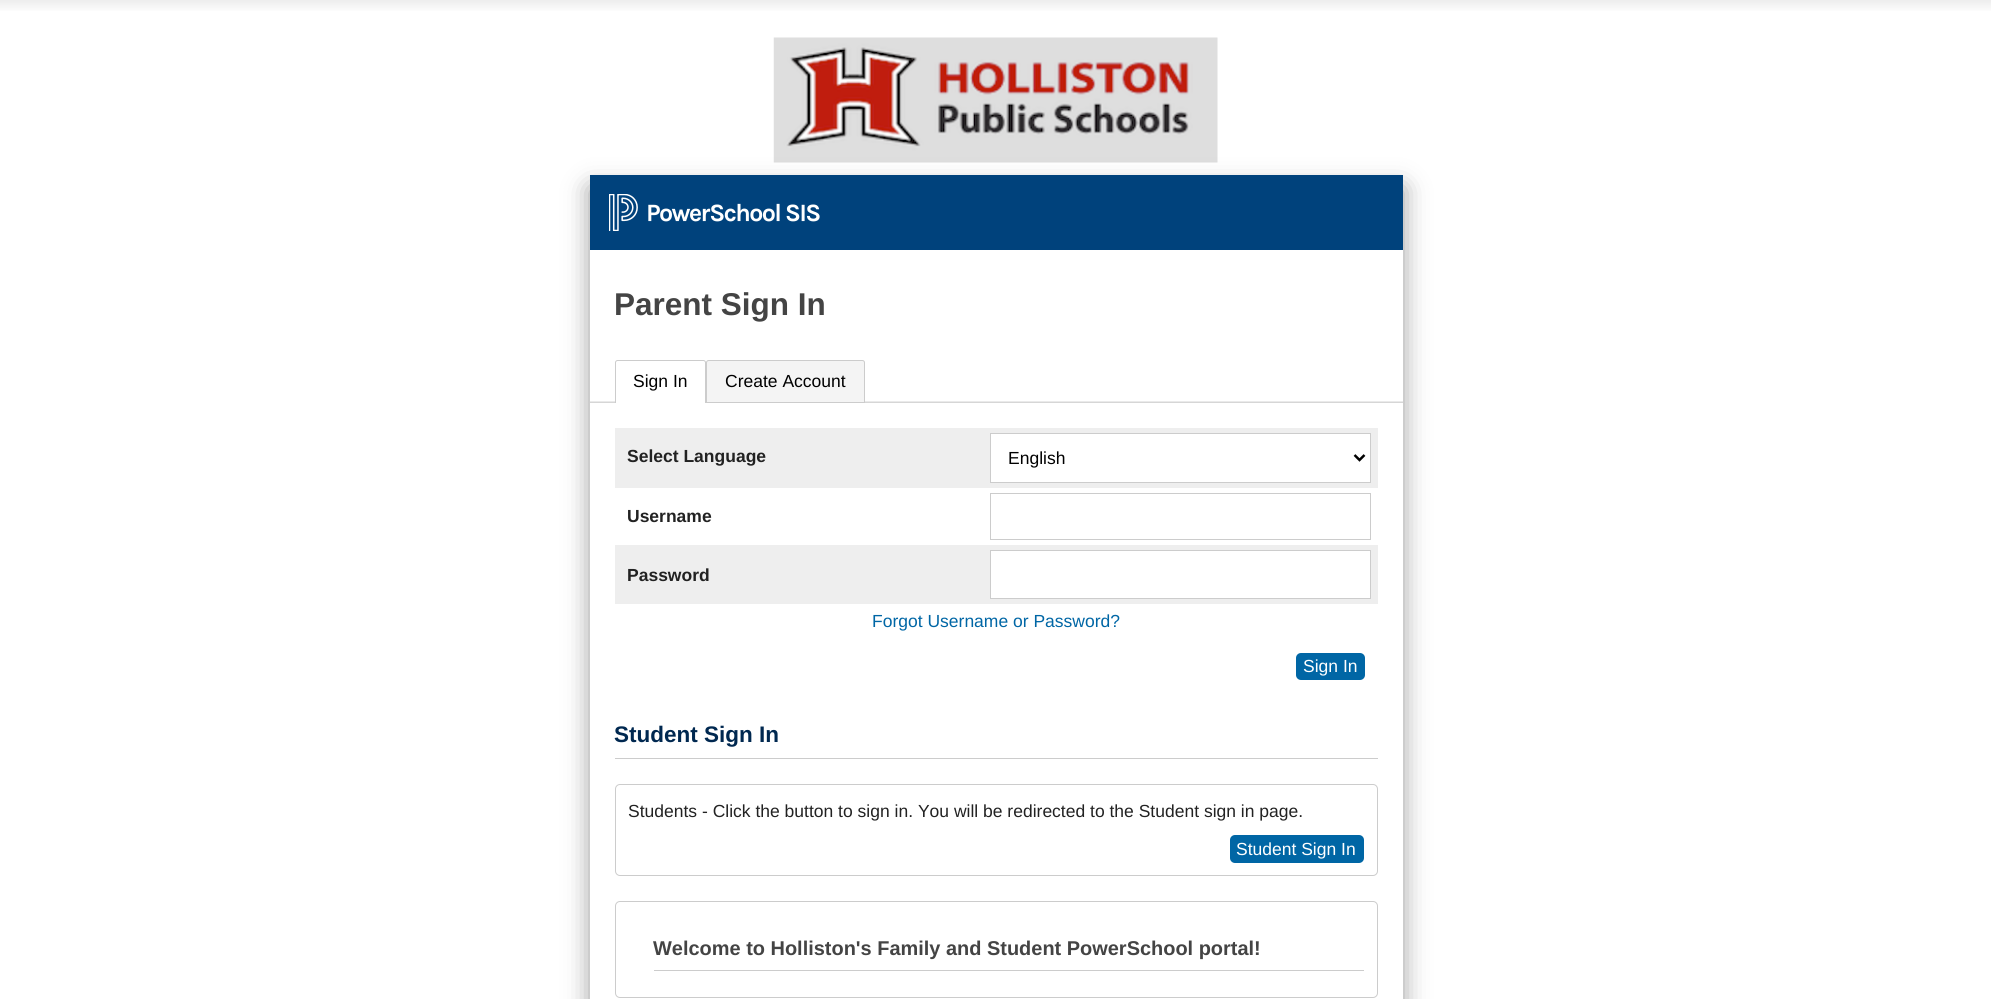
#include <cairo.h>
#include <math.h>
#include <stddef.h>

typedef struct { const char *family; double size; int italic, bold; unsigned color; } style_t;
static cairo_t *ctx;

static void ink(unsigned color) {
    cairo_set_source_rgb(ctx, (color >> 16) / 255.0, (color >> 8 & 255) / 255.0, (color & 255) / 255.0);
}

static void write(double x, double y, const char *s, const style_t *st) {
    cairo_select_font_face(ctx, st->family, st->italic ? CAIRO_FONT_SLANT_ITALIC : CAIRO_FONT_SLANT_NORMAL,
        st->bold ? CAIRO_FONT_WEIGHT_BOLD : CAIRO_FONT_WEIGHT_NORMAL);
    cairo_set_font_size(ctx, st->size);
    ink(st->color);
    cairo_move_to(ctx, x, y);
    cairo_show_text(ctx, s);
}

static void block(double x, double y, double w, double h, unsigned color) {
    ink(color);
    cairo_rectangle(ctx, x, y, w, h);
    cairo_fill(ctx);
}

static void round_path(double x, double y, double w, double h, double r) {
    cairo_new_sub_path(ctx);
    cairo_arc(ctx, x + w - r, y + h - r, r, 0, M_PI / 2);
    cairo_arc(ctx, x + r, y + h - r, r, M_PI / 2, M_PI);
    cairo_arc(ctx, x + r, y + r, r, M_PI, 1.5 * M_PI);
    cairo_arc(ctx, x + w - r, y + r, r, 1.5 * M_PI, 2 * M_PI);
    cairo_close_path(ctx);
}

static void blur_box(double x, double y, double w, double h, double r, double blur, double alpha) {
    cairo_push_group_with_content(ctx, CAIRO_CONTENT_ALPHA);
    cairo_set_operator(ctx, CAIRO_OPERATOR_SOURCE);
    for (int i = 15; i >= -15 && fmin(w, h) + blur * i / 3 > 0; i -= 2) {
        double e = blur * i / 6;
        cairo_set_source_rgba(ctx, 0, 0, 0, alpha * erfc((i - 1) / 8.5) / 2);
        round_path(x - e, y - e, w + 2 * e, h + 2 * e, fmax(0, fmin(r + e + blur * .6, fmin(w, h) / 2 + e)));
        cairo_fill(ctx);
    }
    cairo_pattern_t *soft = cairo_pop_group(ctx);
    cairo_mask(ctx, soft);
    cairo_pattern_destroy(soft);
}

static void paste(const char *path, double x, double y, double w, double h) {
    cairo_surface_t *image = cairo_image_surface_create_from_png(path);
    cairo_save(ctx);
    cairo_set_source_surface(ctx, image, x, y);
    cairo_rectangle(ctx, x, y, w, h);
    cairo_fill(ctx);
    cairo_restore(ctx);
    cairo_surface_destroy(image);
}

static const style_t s1 = {"Liberation Sans", 31.5, 0, 1, 0x444444};
static const style_t s2 = {"Liberation Sans", 17.5, 0, 0, 0x000000};
static const style_t s3 = {"Liberation Sans", 17.5, 0, 1, 0x222222};
static const style_t s4 = {"Liberation Sans", 17.5, 0, 0, 0x0066a5};
static const style_t s5 = {"Liberation Sans", 17.5, 0, 0, 0xffffff};
static const style_t s6 = {"Liberation Sans", 22.5, 0, 1, 0x002850};
static const style_t s7 = {"Liberation Sans", 17.5, 0, 0, 0x222222};
static const style_t s8 = {"Liberation Sans", 19.95, 0, 1, 0x444444};

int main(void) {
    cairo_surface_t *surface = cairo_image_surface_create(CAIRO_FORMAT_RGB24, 1991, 999);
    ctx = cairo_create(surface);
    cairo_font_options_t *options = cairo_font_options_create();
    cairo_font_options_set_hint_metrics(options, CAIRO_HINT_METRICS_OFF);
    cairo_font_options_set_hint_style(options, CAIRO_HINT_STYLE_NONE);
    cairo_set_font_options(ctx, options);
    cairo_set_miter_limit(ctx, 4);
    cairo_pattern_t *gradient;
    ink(0xffffff);
    cairo_paint(ctx);
    gradient = cairo_pattern_create_linear(0, 0, 0, 13);
    cairo_pattern_add_color_stop_rgba(gradient, 0, 0.929, 0.929, 0.929, 1);
    cairo_pattern_add_color_stop_rgba(gradient, 1, 1, 1, 1, 1);
    cairo_set_source(ctx, gradient);
    cairo_pattern_destroy(gradient);
    cairo_rectangle(ctx, 0, 0, 1991, 11);
    cairo_fill(ctx);
    paste("pic1.png", 773, 37, 445, 126);
    ink(0x000000);
    blur_box(590, 188, 813, 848, 0, 12.5, 0.4);
    block(590, 250, 813, 749, 0xffffff);
    block(590, 175, 813, 75, 0x00427c);
    paste("pic2.png", 609, 194, 211, 37);
    write(614, 315, "Parent Sign In", &s1);
    gradient = cairo_pattern_create_linear(996, 403, 996, 360);
    cairo_pattern_add_color_stop_rgba(gradient, 0, 0.8, 0.8, 0.8, 1);
    cairo_pattern_add_color_stop_rgba(gradient, 0.06, 1, 1, 1, 1);
    cairo_pattern_add_color_stop_rgba(gradient, 1, 1, 1, 1, 1);
    cairo_set_source(ctx, gradient);
    cairo_pattern_destroy(gradient);
    cairo_rectangle(ctx, 590, 401, 813, 2);
    cairo_fill(ctx);
    ink(0xffffff);
    cairo_new_path(ctx);
    cairo_move_to(ctx, 617.5, 360);
    cairo_line_to(ctx, 703.5, 360);
    cairo_curve_to(ctx, 705, 360, 706, 361, 706, 362.5);
    cairo_line_to(ctx, 706, 403);
    cairo_line_to(ctx, 615, 403);
    cairo_line_to(ctx, 615, 362.5);
    cairo_curve_to(ctx, 615, 361, 616, 360, 617.5, 360);
    cairo_close_path(ctx);
    cairo_fill(ctx);
    cairo_save(ctx);
    cairo_rectangle(ctx, 590, 360, 813, 43);
    cairo_clip(ctx);
    cairo_new_path(ctx);
    cairo_move_to(ctx, 617.5, 360.5);
    cairo_line_to(ctx, 703.5, 360.5);
    cairo_curve_to(ctx, 704.5, 360.5, 705.5, 361.5, 705.5, 362.5);
    cairo_line_to(ctx, 705.5, 403.5);
    cairo_line_to(ctx, 615.5, 403.5);
    cairo_line_to(ctx, 615.5, 362.5);
    cairo_curve_to(ctx, 615.5, 361.5, 616.5, 360.5, 617.5, 360.5);
    cairo_close_path(ctx);
    ink(0xcccccc);
    cairo_set_line_width(ctx, 1);
    cairo_stroke(ctx);
    cairo_restore(ctx);
    write(633, 387, "Sign In", &s2);
    ink(0xf4f4f4);
    cairo_new_path(ctx);
    cairo_move_to(ctx, 708.5, 360.5);
    cairo_line_to(ctx, 862.5, 360.5);
    cairo_curve_to(ctx, 863.5, 360.5, 864.5, 361.5, 864.5, 362.5);
    cairo_line_to(ctx, 864.5, 402.5);
    cairo_line_to(ctx, 706.5, 402.5);
    cairo_line_to(ctx, 706.5, 362.5);
    cairo_curve_to(ctx, 706.5, 361.5, 707.5, 360.5, 708.5, 360.5);
    cairo_close_path(ctx);
    cairo_fill_preserve(ctx);
    ink(0xcccccc);
    cairo_set_line_width(ctx, 1);
    cairo_stroke(ctx);
    write(725, 387, "Create Account", &s2);
    block(615, 428, 763, 60, 0xeeeeee);
    write(627, 462, "Select Language", &s3);
    ink(0xffffff);
    cairo_rectangle(ctx, 990.5, 433.5, 380, 49);
    cairo_fill_preserve(ctx);
    ink(0xcccccc);
    cairo_stroke(ctx);
    cairo_new_path(ctx);
    cairo_move_to(ctx, 1354.5, 455);
    cairo_line_to(ctx, 1359.5, 460);
    cairo_line_to(ctx, 1364.5, 455);
    ink(0x000000);
    cairo_set_line_width(ctx, 2.5);
    cairo_stroke(ctx);
    write(1008, 464, "English", &s2);
    write(627, 522, "Username", &s3);
    cairo_rectangle(ctx, 990.5, 493.5, 380, 46);
    ink(0xcccccc);
    cairo_set_line_width(ctx, 1);
    cairo_stroke(ctx);
    block(615, 545, 763, 59, 0xeeeeee);
    write(627, 581, "Password", &s3);
    ink(0xffffff);
    cairo_rectangle(ctx, 990.5, 550.5, 380, 48);
    cairo_fill_preserve(ctx);
    ink(0xcccccc);
    cairo_stroke(ctx);
    write(872, 627, "Forgot Username or Password?", &s4);
    round_path(1296, 653, 69, 27, 5);
    cairo_fill(ctx);
    write(1303, 672, "Sign In", &s5);
    block(615, 758, 763, 1, 0xcccccc);
    write(614, 742, "Student Sign In", &s6);
    round_path(615.5, 784.5, 762, 91, 4.5);
    ink(0xcccccc);
    cairo_stroke(ctx);
    write(628, 817, "Students - Click the button to sign in. You will be redirected to the Student sign in page.", &s7);
    ink(0x0066a5);
    round_path(1230, 835, 134, 28, 5);
    cairo_fill(ctx);
    write(1236, 855, "Student Sign In", &s5);
    round_path(615.5, 901.5, 762, 96, 4.5);
    ink(0xcccccc);
    cairo_stroke(ctx);
    block(654, 970, 710, 1, 0xcccccc);
    write(653, 955, "Welcome to Holliston's Family and Student PowerSchool portal!", &s8);
    cairo_surface_write_to_png(surface, "screenshot.png");
    cairo_font_options_destroy(options);
    cairo_destroy(ctx);
    cairo_surface_destroy(surface);
    return 0;
}
